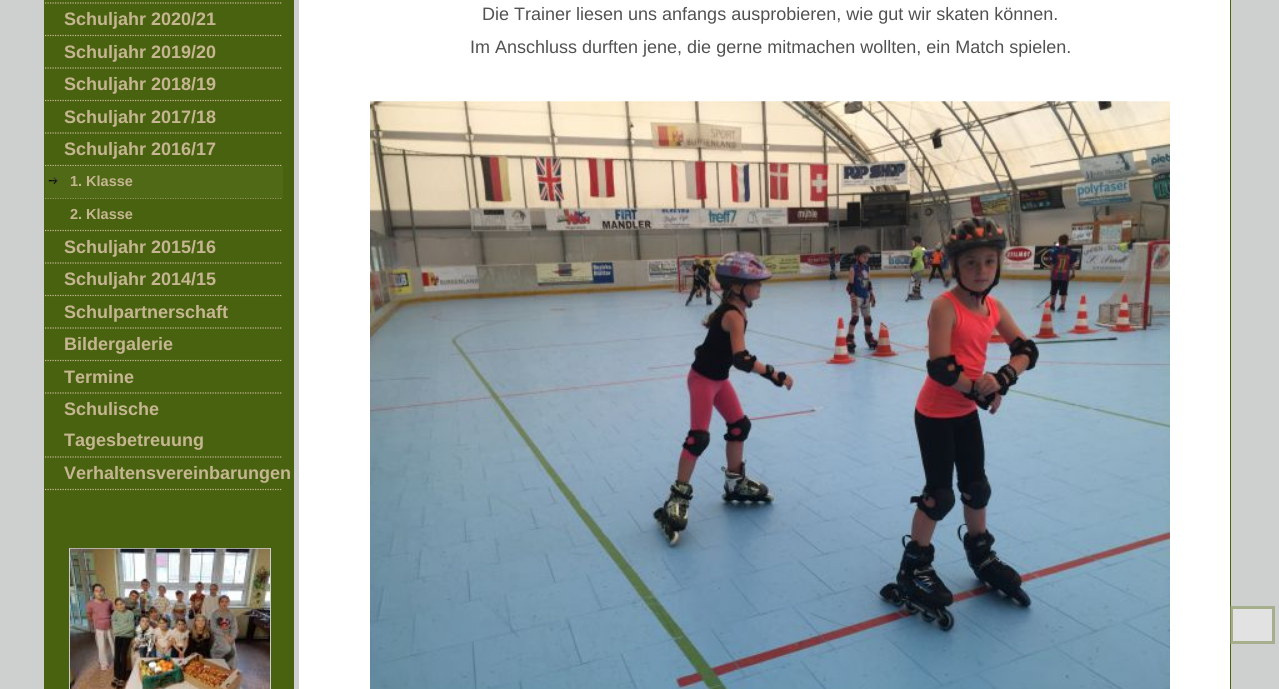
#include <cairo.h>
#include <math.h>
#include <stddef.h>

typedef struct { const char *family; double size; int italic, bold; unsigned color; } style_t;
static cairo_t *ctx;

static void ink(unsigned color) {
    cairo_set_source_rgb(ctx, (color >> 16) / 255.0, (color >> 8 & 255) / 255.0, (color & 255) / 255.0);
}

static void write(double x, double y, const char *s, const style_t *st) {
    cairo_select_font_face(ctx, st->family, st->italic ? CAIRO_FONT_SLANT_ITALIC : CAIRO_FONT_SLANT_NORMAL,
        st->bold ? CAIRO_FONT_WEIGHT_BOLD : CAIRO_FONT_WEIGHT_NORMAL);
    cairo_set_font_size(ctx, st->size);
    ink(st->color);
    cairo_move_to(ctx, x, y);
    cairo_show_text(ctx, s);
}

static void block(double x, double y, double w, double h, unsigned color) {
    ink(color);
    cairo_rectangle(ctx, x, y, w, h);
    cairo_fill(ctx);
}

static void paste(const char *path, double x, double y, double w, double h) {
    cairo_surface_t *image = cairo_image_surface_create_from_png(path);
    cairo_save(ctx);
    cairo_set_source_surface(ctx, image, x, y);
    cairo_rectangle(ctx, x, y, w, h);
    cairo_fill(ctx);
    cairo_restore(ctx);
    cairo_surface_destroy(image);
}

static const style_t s1 = {"Liberation Sans", 18, 0, 1, 0xc5b691};
static const style_t s2 = {"Liberation Sans", 14.5, 0, 1, 0xc5b691};
static const style_t s3 = {"Liberation Sans", 18, 0, 0, 0x515151};

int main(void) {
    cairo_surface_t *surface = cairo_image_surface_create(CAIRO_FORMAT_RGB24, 1279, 689);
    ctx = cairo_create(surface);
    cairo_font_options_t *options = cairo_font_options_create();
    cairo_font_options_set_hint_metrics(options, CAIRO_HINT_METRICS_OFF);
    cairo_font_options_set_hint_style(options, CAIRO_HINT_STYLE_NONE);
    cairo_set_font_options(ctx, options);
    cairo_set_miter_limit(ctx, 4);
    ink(0xcecfcf);
    cairo_paint(ctx);
    block(1231, 606, 44, 38, 0xe2e2e2);
    block(44, 0, 250, 689, 0x49620f);
    cairo_new_path(ctx);
    cairo_move_to(ctx, 45, 3);
    cairo_line_to(ctx, 282.5, 3);
    ink(0xc5b691);
    cairo_set_line_width(ctx, 1.2);
    cairo_set_dash(ctx, (double[]){1.25, 1.25}, 2, 0);
    cairo_stroke(ctx);
    cairo_new_path(ctx);
    cairo_move_to(ctx, 45, 35.5);
    cairo_line_to(ctx, 282.5, 35.5);
    cairo_stroke(ctx);
    write(64, 25, "Schuljahr 2020/21", &s1);
    cairo_new_path(ctx);
    cairo_move_to(ctx, 45, 68);
    cairo_line_to(ctx, 282.5, 68);
    cairo_stroke(ctx);
    write(64, 58, "Schuljahr 2019/20", &s1);
    cairo_new_path(ctx);
    cairo_move_to(ctx, 45, 100.5);
    cairo_line_to(ctx, 282.5, 100.5);
    cairo_stroke(ctx);
    write(64, 90, "Schuljahr 2018/19", &s1);
    cairo_new_path(ctx);
    cairo_move_to(ctx, 45, 133);
    cairo_line_to(ctx, 282.5, 133);
    cairo_stroke(ctx);
    write(64, 123, "Schuljahr 2017/18", &s1);
    cairo_new_path(ctx);
    cairo_move_to(ctx, 45, 165.5);
    cairo_line_to(ctx, 282.5, 165.5);
    cairo_stroke(ctx);
    write(64, 155, "Schuljahr 2016/17", &s1);
    cairo_new_path(ctx);
    cairo_move_to(ctx, 45, 198);
    cairo_line_to(ctx, 282.5, 198);
    cairo_stroke(ctx);
    block(45, 166, 238, 32, 0x506916);
    paste("pic1.png", 48, 177, 10, 7);
    write(70, 186, "1. Klasse", &s2);
    cairo_new_path(ctx);
    cairo_move_to(ctx, 45, 230.5);
    cairo_line_to(ctx, 282.5, 230.5);
    cairo_stroke(ctx);
    write(70, 219, "2. Klasse", &s2);
    cairo_new_path(ctx);
    cairo_move_to(ctx, 45, 263);
    cairo_line_to(ctx, 282.5, 263);
    cairo_stroke(ctx);
    write(64, 253, "Schuljahr 2015/16", &s1);
    cairo_new_path(ctx);
    cairo_move_to(ctx, 45, 295.5);
    cairo_line_to(ctx, 282.5, 295.5);
    cairo_stroke(ctx);
    write(64, 285, "Schuljahr 2014/15", &s1);
    cairo_new_path(ctx);
    cairo_move_to(ctx, 45, 328);
    cairo_line_to(ctx, 282.5, 328);
    cairo_stroke(ctx);
    write(64, 318, "Schulpartnerschaft", &s1);
    cairo_new_path(ctx);
    cairo_move_to(ctx, 45, 360.5);
    cairo_line_to(ctx, 282.5, 360.5);
    cairo_stroke(ctx);
    write(64, 350, "Bildergalerie", &s1);
    cairo_new_path(ctx);
    cairo_move_to(ctx, 45, 393);
    cairo_line_to(ctx, 282.5, 393);
    cairo_stroke(ctx);
    write(64, 383, "Termine", &s1);
    cairo_new_path(ctx);
    cairo_move_to(ctx, 45, 457);
    cairo_line_to(ctx, 282.5, 457);
    cairo_stroke(ctx);
    write(64, 415, "Schulische", &s1);
    write(64, 446, "Tagesbetreuung", &s1);
    cairo_new_path(ctx);
    cairo_move_to(ctx, 45, 489.5);
    cairo_line_to(ctx, 282.5, 489.5);
    cairo_stroke(ctx);
    write(64, 479, "Verhaltensvereinbarungen", &s1);
    cairo_rectangle(ctx, 69.5, 548.5, 201, 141);
    ink(0xcccccc);
    cairo_set_line_width(ctx, 1);
    cairo_set_dash(ctx, NULL, 0, 0);
    cairo_stroke(ctx);
    paste("pic2.png", 70, 548, 200, 141);
    block(299, 0, 931, 689, 0xffffff);
    block(1230, 0, 1, 689, 0x49620f);
    block(1230, 606, 1, 38, 0x92a16f);
    write(482, 20, "Die Trainer liesen uns anfangs ausprobieren, wie gut wir skaten können.", &s3);
    write(470, 53, "Im Anschluss durften jene, die gerne mitmachen wollten, ein Match spielen.", &s3);
    paste("pic3.png", 370, 101, 800, 588);
    cairo_rectangle(ctx, 1231.5, 607.5, 42, 35);
    cairo_set_source_rgba(ctx, 0.286, 0.384, 0.059, 0.4);
    cairo_set_line_width(ctx, 3);
    cairo_stroke(ctx);
    cairo_surface_write_to_png(surface, "screenshot.png");
    cairo_font_options_destroy(options);
    cairo_destroy(ctx);
    cairo_surface_destroy(surface);
    return 0;
}
